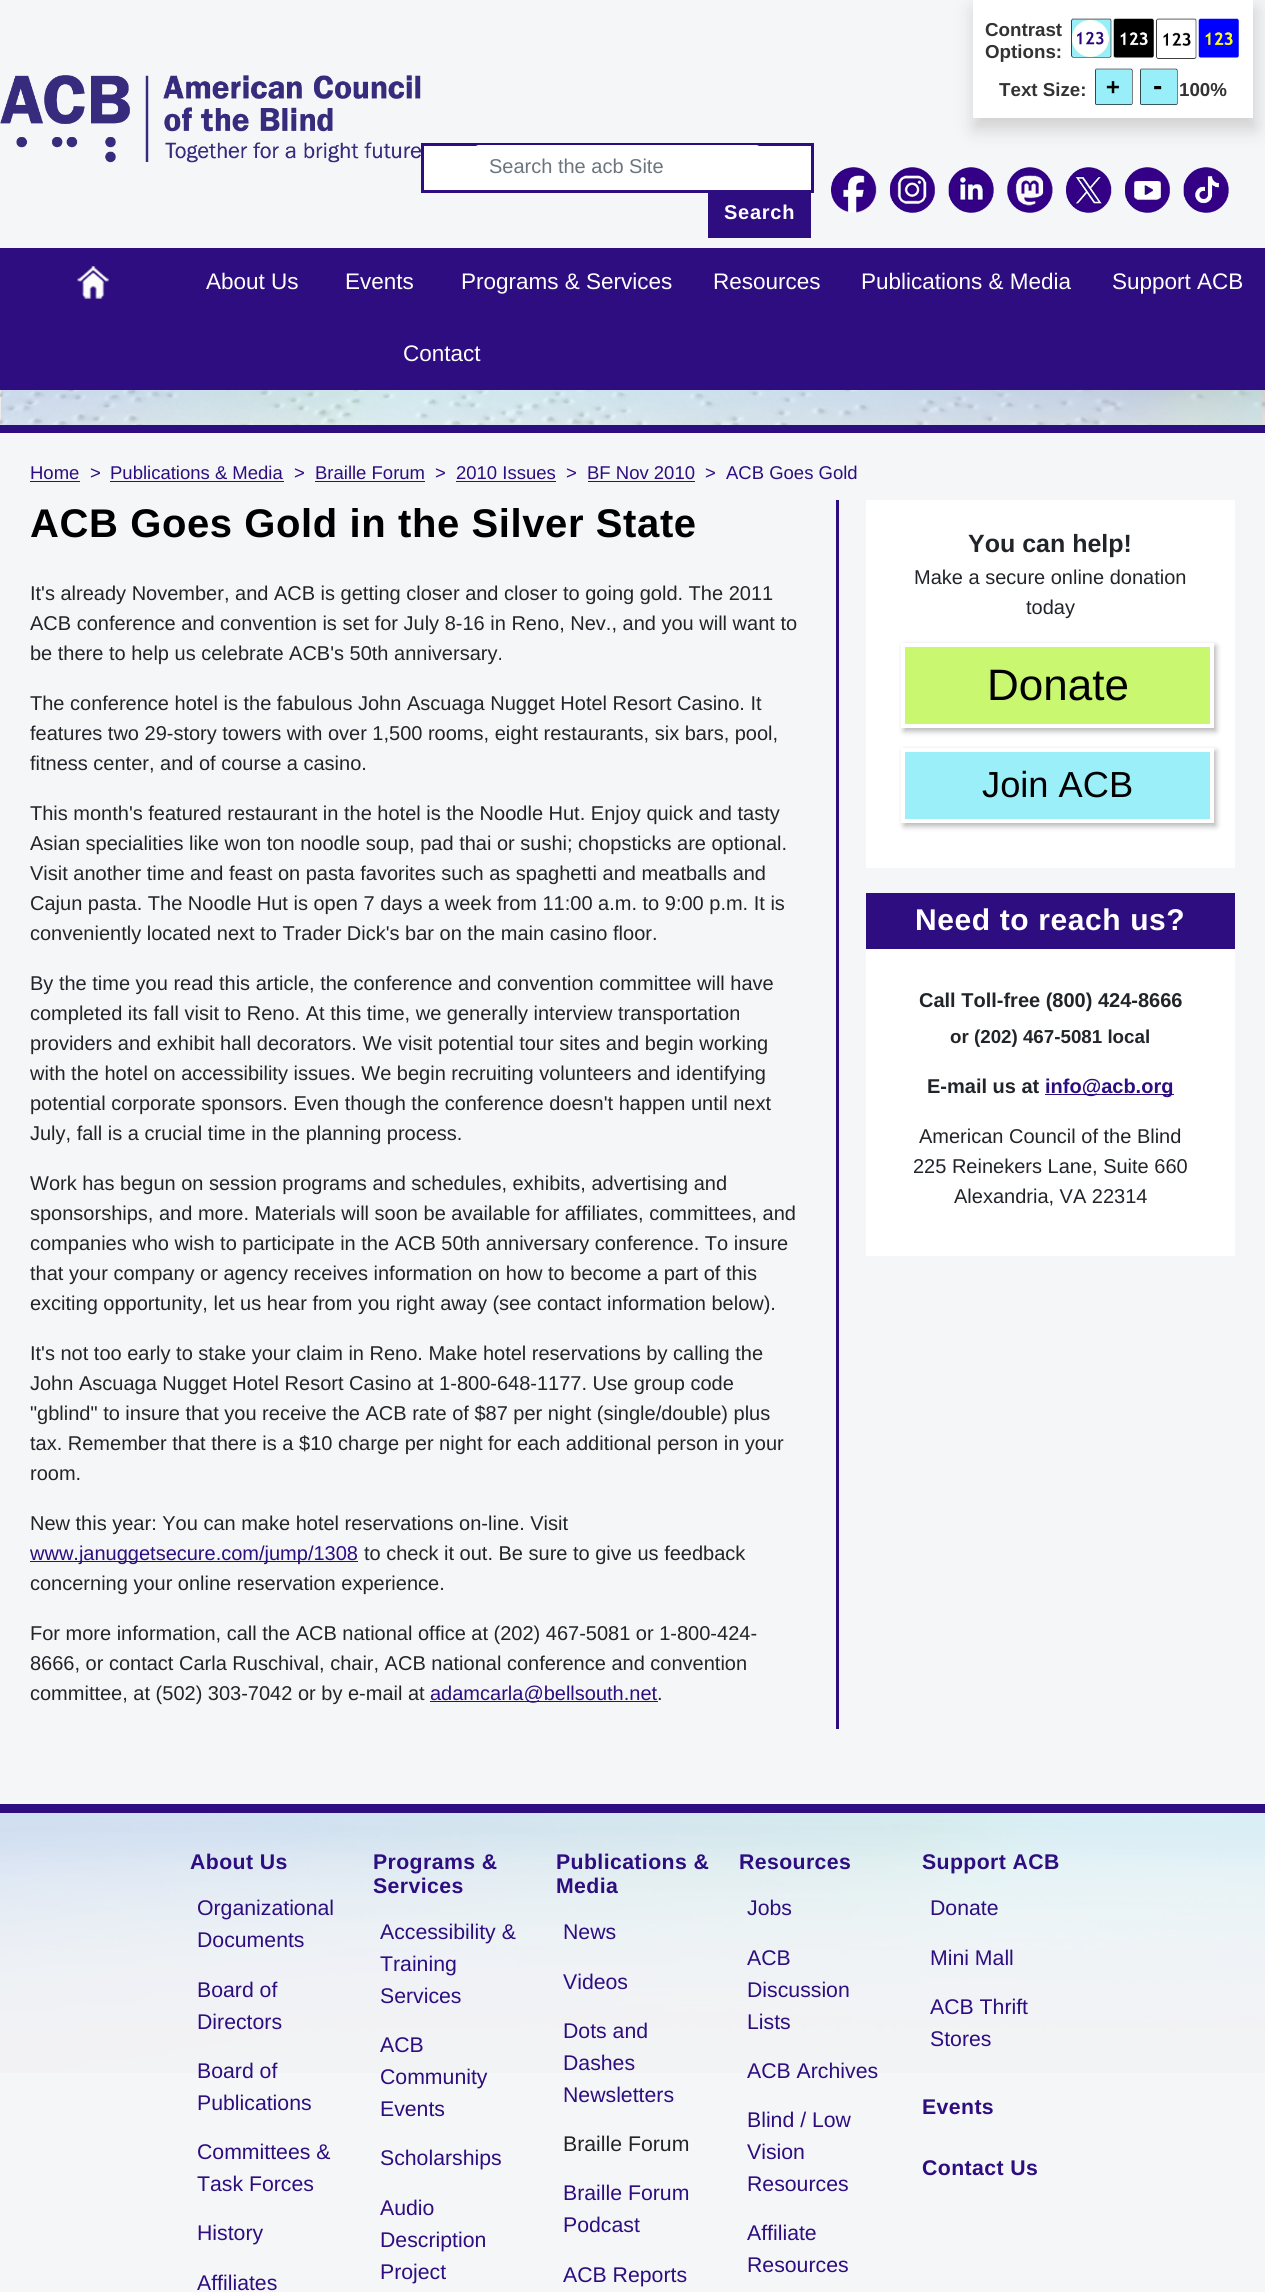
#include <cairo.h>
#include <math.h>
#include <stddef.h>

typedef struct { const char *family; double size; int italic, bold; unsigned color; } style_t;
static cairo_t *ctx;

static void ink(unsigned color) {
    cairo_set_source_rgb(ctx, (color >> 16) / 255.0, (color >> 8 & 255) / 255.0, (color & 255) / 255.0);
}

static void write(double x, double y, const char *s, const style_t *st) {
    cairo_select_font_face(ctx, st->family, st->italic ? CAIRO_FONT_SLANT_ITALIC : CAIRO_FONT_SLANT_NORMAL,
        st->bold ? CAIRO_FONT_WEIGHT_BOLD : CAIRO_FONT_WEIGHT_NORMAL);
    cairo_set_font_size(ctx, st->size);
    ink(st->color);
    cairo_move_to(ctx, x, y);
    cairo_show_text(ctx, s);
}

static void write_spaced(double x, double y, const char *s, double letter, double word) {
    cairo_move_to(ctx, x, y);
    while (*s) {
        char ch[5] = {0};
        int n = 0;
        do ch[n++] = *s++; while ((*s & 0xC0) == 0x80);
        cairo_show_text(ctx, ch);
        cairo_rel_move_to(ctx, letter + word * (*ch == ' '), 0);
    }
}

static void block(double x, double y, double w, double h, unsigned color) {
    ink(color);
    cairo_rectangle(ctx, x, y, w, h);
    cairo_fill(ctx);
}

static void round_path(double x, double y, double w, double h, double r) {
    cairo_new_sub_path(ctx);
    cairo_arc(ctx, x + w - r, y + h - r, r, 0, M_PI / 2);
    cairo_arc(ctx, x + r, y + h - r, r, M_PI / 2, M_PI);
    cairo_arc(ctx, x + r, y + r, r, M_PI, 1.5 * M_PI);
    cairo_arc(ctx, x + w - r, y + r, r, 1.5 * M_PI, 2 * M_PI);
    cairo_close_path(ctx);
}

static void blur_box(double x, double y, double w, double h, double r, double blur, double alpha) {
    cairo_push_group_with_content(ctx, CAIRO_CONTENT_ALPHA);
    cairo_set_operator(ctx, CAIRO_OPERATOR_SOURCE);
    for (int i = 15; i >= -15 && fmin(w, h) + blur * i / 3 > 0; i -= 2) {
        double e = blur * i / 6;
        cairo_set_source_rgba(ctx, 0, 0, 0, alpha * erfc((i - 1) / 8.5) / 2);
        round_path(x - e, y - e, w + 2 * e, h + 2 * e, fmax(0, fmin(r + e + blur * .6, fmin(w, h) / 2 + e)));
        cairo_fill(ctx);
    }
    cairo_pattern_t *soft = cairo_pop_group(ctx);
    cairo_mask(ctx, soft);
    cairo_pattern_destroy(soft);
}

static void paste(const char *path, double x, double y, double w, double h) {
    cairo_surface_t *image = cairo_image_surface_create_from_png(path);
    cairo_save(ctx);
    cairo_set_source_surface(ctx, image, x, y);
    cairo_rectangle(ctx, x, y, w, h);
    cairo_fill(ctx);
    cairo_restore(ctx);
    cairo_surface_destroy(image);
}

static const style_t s1 = {"Liberation Sans", 18.75, 0, 1, 0x333333};
static const style_t s2 = {"Liberation Sans", 20, 0, 0, 0x6c757d};
static const style_t s3 = {"Liberation Sans", 22.5, 0, 0, 0xffffff};
static const style_t s4 = {"Liberation Sans", 18.5, 0, 0, 0x2d0d7f};
static const style_t s5 = {"Liberation Sans", 20, 0, 0, 0x212529};
static const style_t s6 = {"Liberation Sans", 20, 0, 0, 0x2d0d7f};
static const style_t s7 = {"Liberation Sans", 25, 0, 1, 0x212529};
static const style_t s8 = {"Liberation Sans", 44, 0, 0, 0x000000};
static const style_t s9 = {"Liberation Sans", 36.25, 0, 0, 0x000000};
static const style_t s10 = {"Liberation Sans", 20, 0, 1, 0x212529};
static const style_t s11 = {"Liberation Sans", 18.75, 0, 1, 0x212529};
static const style_t s12 = {"Liberation Sans", 20, 0, 1, 0x2d0d7f};
static const style_t s13 = {"Liberation Sans", 21.25, 0, 0, 0x2d0d7f};
static const style_t s14 = {"Liberation Sans", 21.25, 0, 0, 0x212529};

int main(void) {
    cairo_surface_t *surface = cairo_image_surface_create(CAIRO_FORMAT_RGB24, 1265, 2292);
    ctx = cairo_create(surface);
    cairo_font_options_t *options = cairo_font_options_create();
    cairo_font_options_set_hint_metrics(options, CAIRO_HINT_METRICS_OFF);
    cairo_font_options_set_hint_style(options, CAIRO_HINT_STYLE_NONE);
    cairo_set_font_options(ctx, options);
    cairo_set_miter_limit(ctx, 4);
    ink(0xf5f6f7);
    cairo_paint(ctx);
    paste("pic1.png", 0, 75, 421, 88);
    ink(0xb3b3b3);
    blur_box(974, 9, 282, 120, 0, 9, 0.57);
    block(973, 0, 280, 118, 0xffffff);
    write(985, 36, "Contrast", &s1);
    write(985, 58, "Options:", &s1);
    paste("pic2.png", 1071, 18, 41, 40);
    paste("pic3.png", 1113, 18, 41, 40);
    paste("pic4.png", 1156, 18, 41, 41);
    paste("pic5.png", 1198, 18, 41, 40);
    write(999, 96, "Text Size:", &s1);
    paste("pic6.png", 1095, 68, 38, 37);
    paste("pic7.png", 1140, 68, 38, 37);
    write(1179, 96, "100%", &s1);
    ink(0xffffff);
    cairo_rectangle(ctx, 422.5, 144.5, 390, 47);
    cairo_fill_preserve(ctx);
    ink(0x2d0d7f);
    cairo_set_line_width(ctx, 3);
    cairo_stroke(ctx);
    ink(0xffffff);
    round_path(474, 145, 287, 45, 5);
    cairo_fill(ctx);
    write(489, 173, "Search the acb Site", &s2);
    block(708, 193, 103, 45, 0x2d0d7f);
    cairo_select_font_face(ctx, "Liberation Sans", CAIRO_FONT_SLANT_NORMAL, CAIRO_FONT_WEIGHT_BOLD);
    ink(0xffffff);
    write_spaced(724, 219, "Search", 0.75, 0);
    paste("pic8.png", 831, 167, 46, 46);
    paste("pic9.png", 890, 167, 45, 46);
    paste("pic10.png", 948, 167, 46, 46);
    paste("pic11.png", 1007, 167, 46, 46);
    paste("pic12.png", 1066, 167, 46, 46);
    paste("pic13.png", 1125, 167, 45, 46);
    paste("pic14.png", 1183, 167, 46, 46);
    block(0, 248, 1265, 142, 0x2d0d7f);
    paste("pic15.png", 77, 266, 32, 33);
    write(206, 289, "About Us", &s3);
    write(345, 289, "Events", &s3);
    write(461, 289, "Programs & Services", &s3);
    write(713, 289, "Resources", &s3);
    write(861, 289, "Publications & Media", &s3);
    write(1112, 289, "Support ACB", &s3);
    write(403, 361, "Contact", &s3);
    paste("pic16.png", 0, 390, 1265, 35);
    block(0, 425, 1265, 8, 0x2d0d7f);
    write(30, 479, "Home", &s4);
    block(30, 481, 50, 1, 0x2d0d7f);
    write(90, 479, ">", &s4);
    write(110, 479, "Publications & Media", &s4);
    block(110, 481, 174, 1, 0x2d0d7f);
    write(294, 479, ">", &s4);
    write(315, 479, "Braille Forum", &s4);
    block(315, 481, 110, 1, 0x2d0d7f);
    write(435, 479, ">", &s4);
    write(456, 479, "2010 Issues", &s4);
    block(456, 481, 100, 1, 0x2d0d7f);
    write(566, 479, ">", &s4);
    write(587, 479, "BF Nov 2010", &s4);
    block(588, 481, 107, 1, 0x2d0d7f);
    write(705, 479, ">", &s4);
    write(726, 479, "ACB Goes Gold", &s4);
    block(836, 500, 3, 1229, 0x2d0d80);
    cairo_select_font_face(ctx, "Liberation Sans", CAIRO_FONT_SLANT_NORMAL, CAIRO_FONT_WEIGHT_BOLD);
    cairo_set_font_size(ctx, 40);
    ink(0x000000);
    write_spaced(30, 537, "ACB Goes Gold in the Silver State", 0.6, 0);
    write(30, 600, "It's already November, and ACB is getting closer and closer to going gold. The 2011", &s5);
    write(30, 630, "ACB conference and convention is set for July 8-16 in Reno, Nev., and you will want to", &s5);
    write(30, 660, "be there to help us celebrate ACB's 50th anniversary.", &s5);
    write(30, 710, "The conference hotel is the fabulous John Ascuaga Nugget Hotel Resort Casino. It", &s5);
    write(30, 740, "features two 29-story towers with over 1,500 rooms, eight restaurants, six bars, pool,", &s5);
    write(30, 770, "fitness center, and of course a casino.", &s5);
    write(30, 820, "This month's featured restaurant in the hotel is the Noodle Hut. Enjoy quick and tasty", &s5);
    write(30, 850, "Asian specialities like won ton noodle soup, pad thai or sushi; chopsticks are optional.", &s5);
    write(30, 880, "Visit another time and feast on pasta favorites such as spaghetti and meatballs and", &s5);
    write(30, 910, "Cajun pasta. The Noodle Hut is open 7 days a week from 11:00 a.m. to 9:00 p.m. It is", &s5);
    write(30, 940, "conveniently located next to Trader Dick's bar on the main casino floor.", &s5);
    write(30, 990, "By the time you read this article, the conference and convention committee will have", &s5);
    write(30, 1020, "completed its fall visit to Reno. At this time, we generally interview transportation", &s5);
    write(30, 1050, "providers and exhibit hall decorators. We visit potential tour sites and begin working", &s5);
    write(30, 1080, "with the hotel on accessibility issues. We begin recruiting volunteers and identifying", &s5);
    write(30, 1110, "potential corporate sponsors. Even though the conference doesn't happen until next", &s5);
    write(30, 1140, "July, fall is a crucial time in the planning process.", &s5);
    write(30, 1190, "Work has begun on session programs and schedules, exhibits, advertising and", &s5);
    write(30, 1220, "sponsorships, and more. Materials will soon be available for affiliates, committees, and", &s5);
    write(30, 1250, "companies who wish to participate in the ACB 50th anniversary conference. To insure", &s5);
    write(30, 1280, "that your company or agency receives information on how to become a part of this", &s5);
    write(30, 1310, "exciting opportunity, let us hear from you right away (see contact information below).", &s5);
    write(30, 1360, "It's not too early to stake your claim in Reno. Make hotel reservations by calling the", &s5);
    write(30, 1390, "John Ascuaga Nugget Hotel Resort Casino at 1-800-648-1177. Use group code", &s5);
    write(30, 1420, "\"gblind\" to insure that you receive the ACB rate of $87 per night (single/double) plus", &s5);
    write(30, 1450, "tax. Remember that there is a $10 charge per night for each additional person in your", &s5);
    write(30, 1480, "room.", &s5);
    write(30, 1530, "New this year: You can make hotel reservations on-line. Visit", &s5);
    block(30, 1561, 328, 1, 0x2d0d80);
    write(30, 1560, "www.januggetsecure.com/jump/1308", &s6);
    write(364, 1560, "to check it out. Be sure to give us feedback", &s5);
    write(30, 1590, "concerning your online reservation experience.", &s5);
    write(30, 1640, "For more information, call the ACB national office at (202) 467-5081 or 1-800-424-", &s5);
    write(30, 1670, "8666, or contact Carla Ruschival, chair, ACB national conference and convention", &s5);
    write(30, 1700, "committee, at (502) 303-7042 or by e-mail at", &s5);
    block(430, 1701, 228, 1, 0x2d0d80);
    write(430, 1700, "adamcarla@bellsouth.net", &s6);
    write(657, 1700, ".", &s5);
    block(866, 500, 369, 368, 0xffffff);
    write(968, 552, "You can help!", &s7);
    write(914, 584, "Make a secure online donation", &s5);
    write(1026, 614, "today", &s5);
    ink(0x020202);
    blur_box(904, 646, 312, 85, 0, 3, 0.3);
    ink(0xc9f76f);
    cairo_rectangle(ctx, 903, 645, 309, 81);
    cairo_fill_preserve(ctx);
    ink(0xffffff);
    cairo_set_line_width(ctx, 4);
    cairo_stroke(ctx);
    write(987, 700, "Donate", &s8);
    ink(0x020202);
    blur_box(904, 751, 312, 75, 0, 3, 0.3);
    ink(0x9beff9);
    cairo_rectangle(ctx, 903, 750, 309, 71);
    cairo_fill_preserve(ctx);
    ink(0xffffff);
    cairo_stroke(ctx);
    write(982, 797, "Join ACB", &s9);
    block(866, 949, 369, 307, 0xffffff);
    block(866, 893, 369, 56, 0x2d0d80);
    cairo_select_font_face(ctx, "Liberation Sans", CAIRO_FONT_SLANT_NORMAL, CAIRO_FONT_WEIGHT_BOLD);
    cairo_set_font_size(ctx, 30);
    ink(0xffffff);
    write_spaced(915, 930, "Need to reach us?", 0.6, 0);
    write(919, 1007, "Call Toll-free (800) 424-8666", &s10);
    write(950, 1043, "or (202) 467-5081 local", &s11);
    write(927, 1093, "E-mail us at", &s10);
    block(1045, 1094, 129, 1, 0x2d0d80);
    write(1045, 1093, "info@acb.org", &s12);
    write(919, 1143, "American Council of the Blind", &s5);
    write(913, 1173, "225 Reinekers Lane, Suite 660", &s5);
    write(954, 1203, "Alexandria, VA 22314", &s5);
    paste("pic17.png", 0, 1813, 1265, 260);
    block(0, 1804, 1265, 9, 0x2d0d80);
    cairo_select_font_face(ctx, "Liberation Sans", CAIRO_FONT_SLANT_NORMAL, CAIRO_FONT_WEIGHT_BOLD);
    cairo_set_font_size(ctx, 21.25);
    ink(0x2d0d7f);
    write_spaced(190, 1869, "About Us", 0.4, 0);
    write(197, 1915, "Organizational", &s13);
    write(197, 1947, "Documents", &s13);
    write(197, 1997, "Board of", &s13);
    write(197, 2029, "Directors", &s13);
    write(197, 2078, "Board of", &s13);
    write(197, 2110, "Publications", &s13);
    write(197, 2159, "Committees &", &s13);
    write(197, 2191, "Task Forces", &s13);
    write(197, 2240, "History", &s13);
    write(197, 2290, "Affiliates", &s13);
    cairo_select_font_face(ctx, "Liberation Sans", CAIRO_FONT_SLANT_NORMAL, CAIRO_FONT_WEIGHT_BOLD);
    write_spaced(373, 1869, "Programs &", 0.4, 0);
    write_spaced(373, 1893, "Services", 0.4, 0);
    write(380, 1939, "Accessibility &", &s13);
    write(380, 1971, "Training", &s13);
    write(380, 2003, "Services", &s13);
    write(380, 2052, "ACB", &s13);
    write(380, 2084, "Community", &s13);
    write(380, 2116, "Events", &s13);
    write(380, 2165, "Scholarships", &s13);
    write(380, 2215, "Audio", &s13);
    write(380, 2247, "Description", &s13);
    write(380, 2279, "Project", &s13);
    cairo_select_font_face(ctx, "Liberation Sans", CAIRO_FONT_SLANT_NORMAL, CAIRO_FONT_WEIGHT_BOLD);
    write_spaced(556, 1869, "Publications &", 0.4, 0);
    write_spaced(556, 1893, "Media", 0.4, 0);
    write(563, 1939, "News", &s13);
    write(563, 1989, "Videos", &s13);
    write(563, 2038, "Dots and", &s13);
    write(563, 2070, "Dashes", &s13);
    write(563, 2102, "Newsletters", &s13);
    write(563, 2151, "Braille Forum", &s14);
    write(563, 2200, "Braille Forum", &s13);
    write(563, 2232, "Podcast", &s13);
    write(563, 2282, "ACB Reports", &s13);
    cairo_select_font_face(ctx, "Liberation Sans", CAIRO_FONT_SLANT_NORMAL, CAIRO_FONT_WEIGHT_BOLD);
    write_spaced(739, 1869, "Resources", 0.4, 0);
    write(747, 1915, "Jobs", &s13);
    write(747, 1965, "ACB", &s13);
    write(747, 1997, "Discussion", &s13);
    write(747, 2029, "Lists", &s13);
    write(747, 2078, "ACB Archives", &s13);
    write(747, 2127, "Blind / Low", &s13);
    write(747, 2159, "Vision", &s13);
    write(747, 2191, "Resources", &s13);
    write(747, 2240, "Affiliate", &s13);
    write(747, 2272, "Resources", &s13);
    cairo_select_font_face(ctx, "Liberation Sans", CAIRO_FONT_SLANT_NORMAL, CAIRO_FONT_WEIGHT_BOLD);
    write_spaced(922, 1869, "Support ACB", 0.4, 0);
    write(930, 1915, "Donate", &s13);
    write(930, 1965, "Mini Mall", &s13);
    write(930, 2014, "ACB Thrift", &s13);
    write(930, 2046, "Stores", &s13);
    cairo_select_font_face(ctx, "Liberation Sans", CAIRO_FONT_SLANT_NORMAL, CAIRO_FONT_WEIGHT_BOLD);
    write_spaced(922, 2114, "Events", 0.4, 0);
    write_spaced(922, 2175, "Contact Us", 0.4, 0);
    cairo_surface_write_to_png(surface, "screenshot.png");
    cairo_font_options_destroy(options);
    cairo_destroy(ctx);
    cairo_surface_destroy(surface);
    return 0;
}
